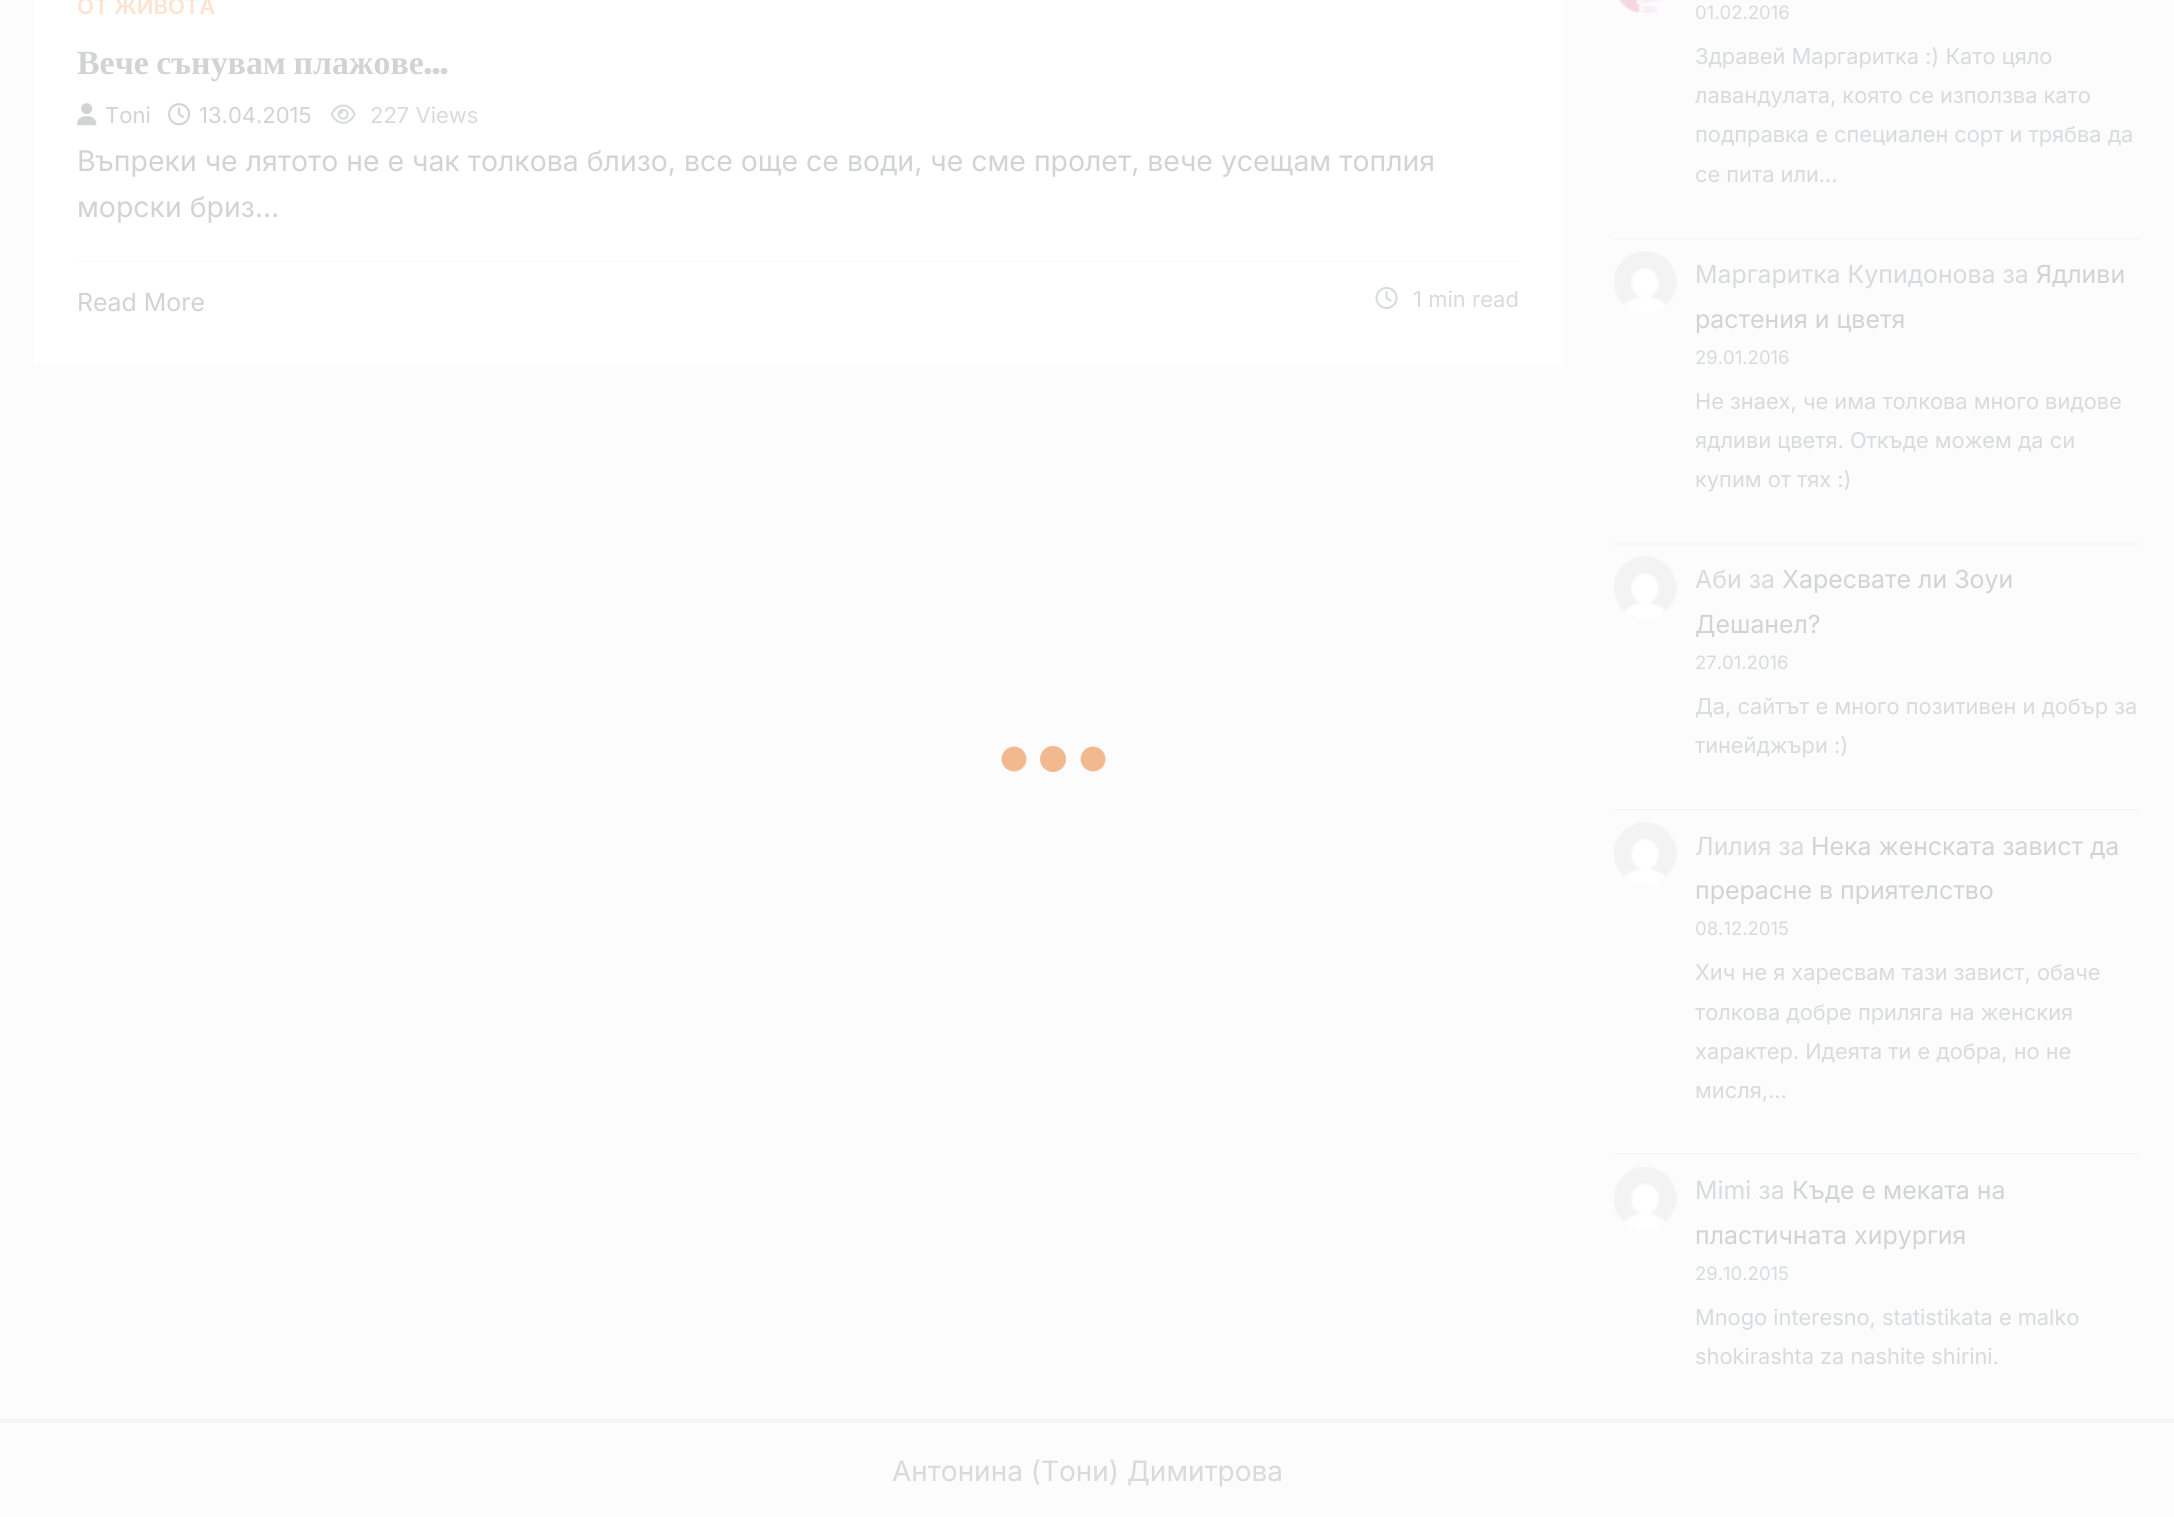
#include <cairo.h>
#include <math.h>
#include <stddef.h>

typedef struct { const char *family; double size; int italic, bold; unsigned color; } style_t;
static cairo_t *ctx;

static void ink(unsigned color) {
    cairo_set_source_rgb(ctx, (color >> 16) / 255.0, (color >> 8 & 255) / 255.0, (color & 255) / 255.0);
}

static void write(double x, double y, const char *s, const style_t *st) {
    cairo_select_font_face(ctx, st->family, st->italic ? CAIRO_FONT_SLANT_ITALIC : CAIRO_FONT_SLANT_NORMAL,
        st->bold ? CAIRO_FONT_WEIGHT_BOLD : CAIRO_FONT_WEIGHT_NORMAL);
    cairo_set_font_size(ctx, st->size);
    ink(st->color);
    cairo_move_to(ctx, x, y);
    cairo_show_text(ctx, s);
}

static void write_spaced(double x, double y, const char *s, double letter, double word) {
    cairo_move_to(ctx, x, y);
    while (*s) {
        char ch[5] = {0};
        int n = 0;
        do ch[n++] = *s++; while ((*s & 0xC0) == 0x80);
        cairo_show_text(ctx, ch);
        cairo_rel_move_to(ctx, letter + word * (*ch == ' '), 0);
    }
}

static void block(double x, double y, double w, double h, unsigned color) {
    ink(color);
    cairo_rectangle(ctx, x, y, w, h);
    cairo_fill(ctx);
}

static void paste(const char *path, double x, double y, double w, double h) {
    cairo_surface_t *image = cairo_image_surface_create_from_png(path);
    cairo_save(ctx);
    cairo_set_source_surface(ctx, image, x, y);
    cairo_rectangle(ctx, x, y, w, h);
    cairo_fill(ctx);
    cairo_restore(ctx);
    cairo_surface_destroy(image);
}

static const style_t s1 = {"Inter SemiBold", 22, 0, 0, 0xfde4d2};
static const style_t s2 = {"Poppins", 33.9, 0, 1, 0xd2d3d3};
static const style_t s3 = {"Inter", 22, 0, 0, 0xd2d3d3};
static const style_t s4 = {"Inter", 22, 0, 0, 0xd8dadc};
static const style_t s5 = {"Inter", 28.4, 0, 0, 0xd2d3d3};
static const style_t s6 = {"Inter", 24.9, 0, 0, 0xd2d3d3};
static const style_t s7 = {"Inter", 18.5, 0, 0, 0xd8dadc};
static const style_t s8 = {"Inter", 21.8, 0, 0, 0xd8dadc};
static const style_t s9 = {"Inter", 24.9, 0, 0, 0xd8dadc};
static const style_t s10 = {"Inter", 28, 0, 0, 0xd8dadc};

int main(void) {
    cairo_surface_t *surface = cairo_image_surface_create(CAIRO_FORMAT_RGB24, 2174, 1517);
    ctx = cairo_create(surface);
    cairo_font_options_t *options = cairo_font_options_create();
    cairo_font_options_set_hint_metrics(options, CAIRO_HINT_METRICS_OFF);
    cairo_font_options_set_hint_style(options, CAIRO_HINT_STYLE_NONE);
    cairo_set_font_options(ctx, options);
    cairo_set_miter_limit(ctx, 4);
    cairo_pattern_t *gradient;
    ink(0xfcfcfc);
    cairo_paint(ctx);
    block(35, 0, 1526, 364, 0xffffff);
    write(77, 14, "ОТ ЖИВОТА", &s1);
    cairo_select_font_face(ctx, "Liberation Serif", CAIRO_FONT_SLANT_NORMAL, CAIRO_FONT_WEIGHT_BOLD);
    cairo_set_font_size(ctx, 33.9);
    ink(0xd2d3d3);
    write_spaced(77, 74, "Вече сънувам плажове", 0, -1);
    write(423, 74, "…", &s2);
    paste("pic1.png", 77, 103, 20, 23);
    write(105, 123, "Toni", &s3);
    paste("pic2.png", 168, 103, 23, 23);
    write(199, 123, "13.04.2015", &s3);
    paste("pic3.png", 330, 104, 26, 20);
    write(370, 123, "227 Views", &s4);
    write(77, 171, "Въпреки че лятото не е чак толкова близо, все още се води, че сме пролет, вече усещам топлия", &s5);
    write(77, 217, "морски бриз…", &s5);
    block(77, 261, 1442, 2, 0xfcfcfc);
    write(77, 311, "Read More", &s6);
    paste("pic4.png", 1375, 286, 23, 23);
    write(1413, 307, "1 min read", &s4);
    block(1614, 238, 526, 2, 0xf7f7f7);
    paste("pic5.png", 1618, 0, 52, 14);
    write(1695, 19, "01.02.2016", &s7);
    write(1695, 64, "Здравей Маргаритка :) Като цяло", &s8);
    write(1695, 103, "лавандулата, която се използва като", &s8);
    write(1695, 142, "подправка е специален сорт и трябва да", &s8);
    write(1695, 182, "се пита или…", &s8);
    block(1614, 543, 526, 2, 0xf7f7f7);
    paste("pic6.png", 1614, 251, 63, 62);
    write(1695, 283, "Маргаритка Купидонова за", &s9);
    write(2036, 283, "Ядливи", &s6);
    write(1695, 328, "растения и цветя", &s6);
    write(1695, 364, "29.01.2016", &s7);
    write(1695, 409, "Не знаех, че има толкова много видове", &s8);
    write(1695, 448, "ядливи цветя. Откъде можем да си", &s8);
    write(1695, 487, "купим от тях :)", &s8);
    block(1614, 809, 526, 2, 0xf7f7f7);
    paste("pic7.png", 1614, 555, 63, 64);
    write(1695, 588, "Аби за", &s9);
    write(1782, 588, "Харесвате ли Зоуи", &s6);
    write(1695, 633, "Дешанел?", &s6);
    write(1695, 669, "27.01.2016", &s7);
    write(1695, 714, "Да, сайтът е много позитивен и добър за", &s8);
    write(1695, 753, "тинейджъри :)", &s8);
    block(1614, 1153, 526, 2, 0xf7f7f7);
    paste("pic7.png", 1614, 821, 63, 64);
    write(1695, 855, "Лилия за", &s9);
    write(1811, 855, "Нека женската завист да", &s6);
    write(1695, 899, "прерасне в приятелство", &s6);
    write(1695, 935, "08.12.2015", &s7);
    write(1695, 980, "Хич не я харесвам тази завист, обаче", &s8);
    write(1695, 1020, "толкова добре приляга на женския", &s8);
    write(1695, 1059, "характер. Идеята ти е добра, но не", &s8);
    write(1695, 1098, "мисля,…", &s8);
    paste("pic8.png", 1614, 1166, 63, 64);
    write(1695, 1199, "Mimi за", &s9);
    write(1792, 1199, "Къде е меката на", &s6);
    write(1695, 1244, "пластичната хирургия", &s6);
    write(1695, 1280, "29.10.2015", &s7);
    write(1695, 1325, "Mnogo interesno, statistikata e malko", &s8);
    write(1695, 1364, "shokirashta za nashite shirini.", &s8);
    gradient = cairo_pattern_create_radial(1093, 759, 0, 1093, 759, 13);
    cairo_pattern_add_color_stop_rgba(gradient, 0.9, 0.949, 0.722, 0.557, 1);
    cairo_pattern_add_color_stop_rgba(gradient, 1, 0.988, 0.988, 0.988, 1);
    cairo_set_source(ctx, gradient);
    cairo_pattern_destroy(gradient);
    cairo_rectangle(ctx, 1080, 746, 26, 26);
    cairo_fill(ctx);
    gradient = cairo_pattern_create_radial(1014, 759, 0, 1014, 759, 13);
    cairo_pattern_add_color_stop_rgba(gradient, 0.9, 0.949, 0.722, 0.557, 1);
    cairo_pattern_add_color_stop_rgba(gradient, 1, 0.988, 0.988, 0.988, 1);
    cairo_set_source(ctx, gradient);
    cairo_pattern_destroy(gradient);
    cairo_rectangle(ctx, 1001, 746, 26, 26);
    cairo_fill(ctx);
    ink(0xf2b88e);
    cairo_arc(ctx, 1053, 759, 13, 0, 2 * M_PI);
    cairo_fill(ctx);
    block(0, 1419, 2174, 4, 0xf5f5f5);
    write(892, 1481, "Антонина (Тони) Димитрова", &s10);
    cairo_surface_write_to_png(surface, "screenshot.png");
    cairo_font_options_destroy(options);
    cairo_destroy(ctx);
    cairo_surface_destroy(surface);
    return 0;
}
